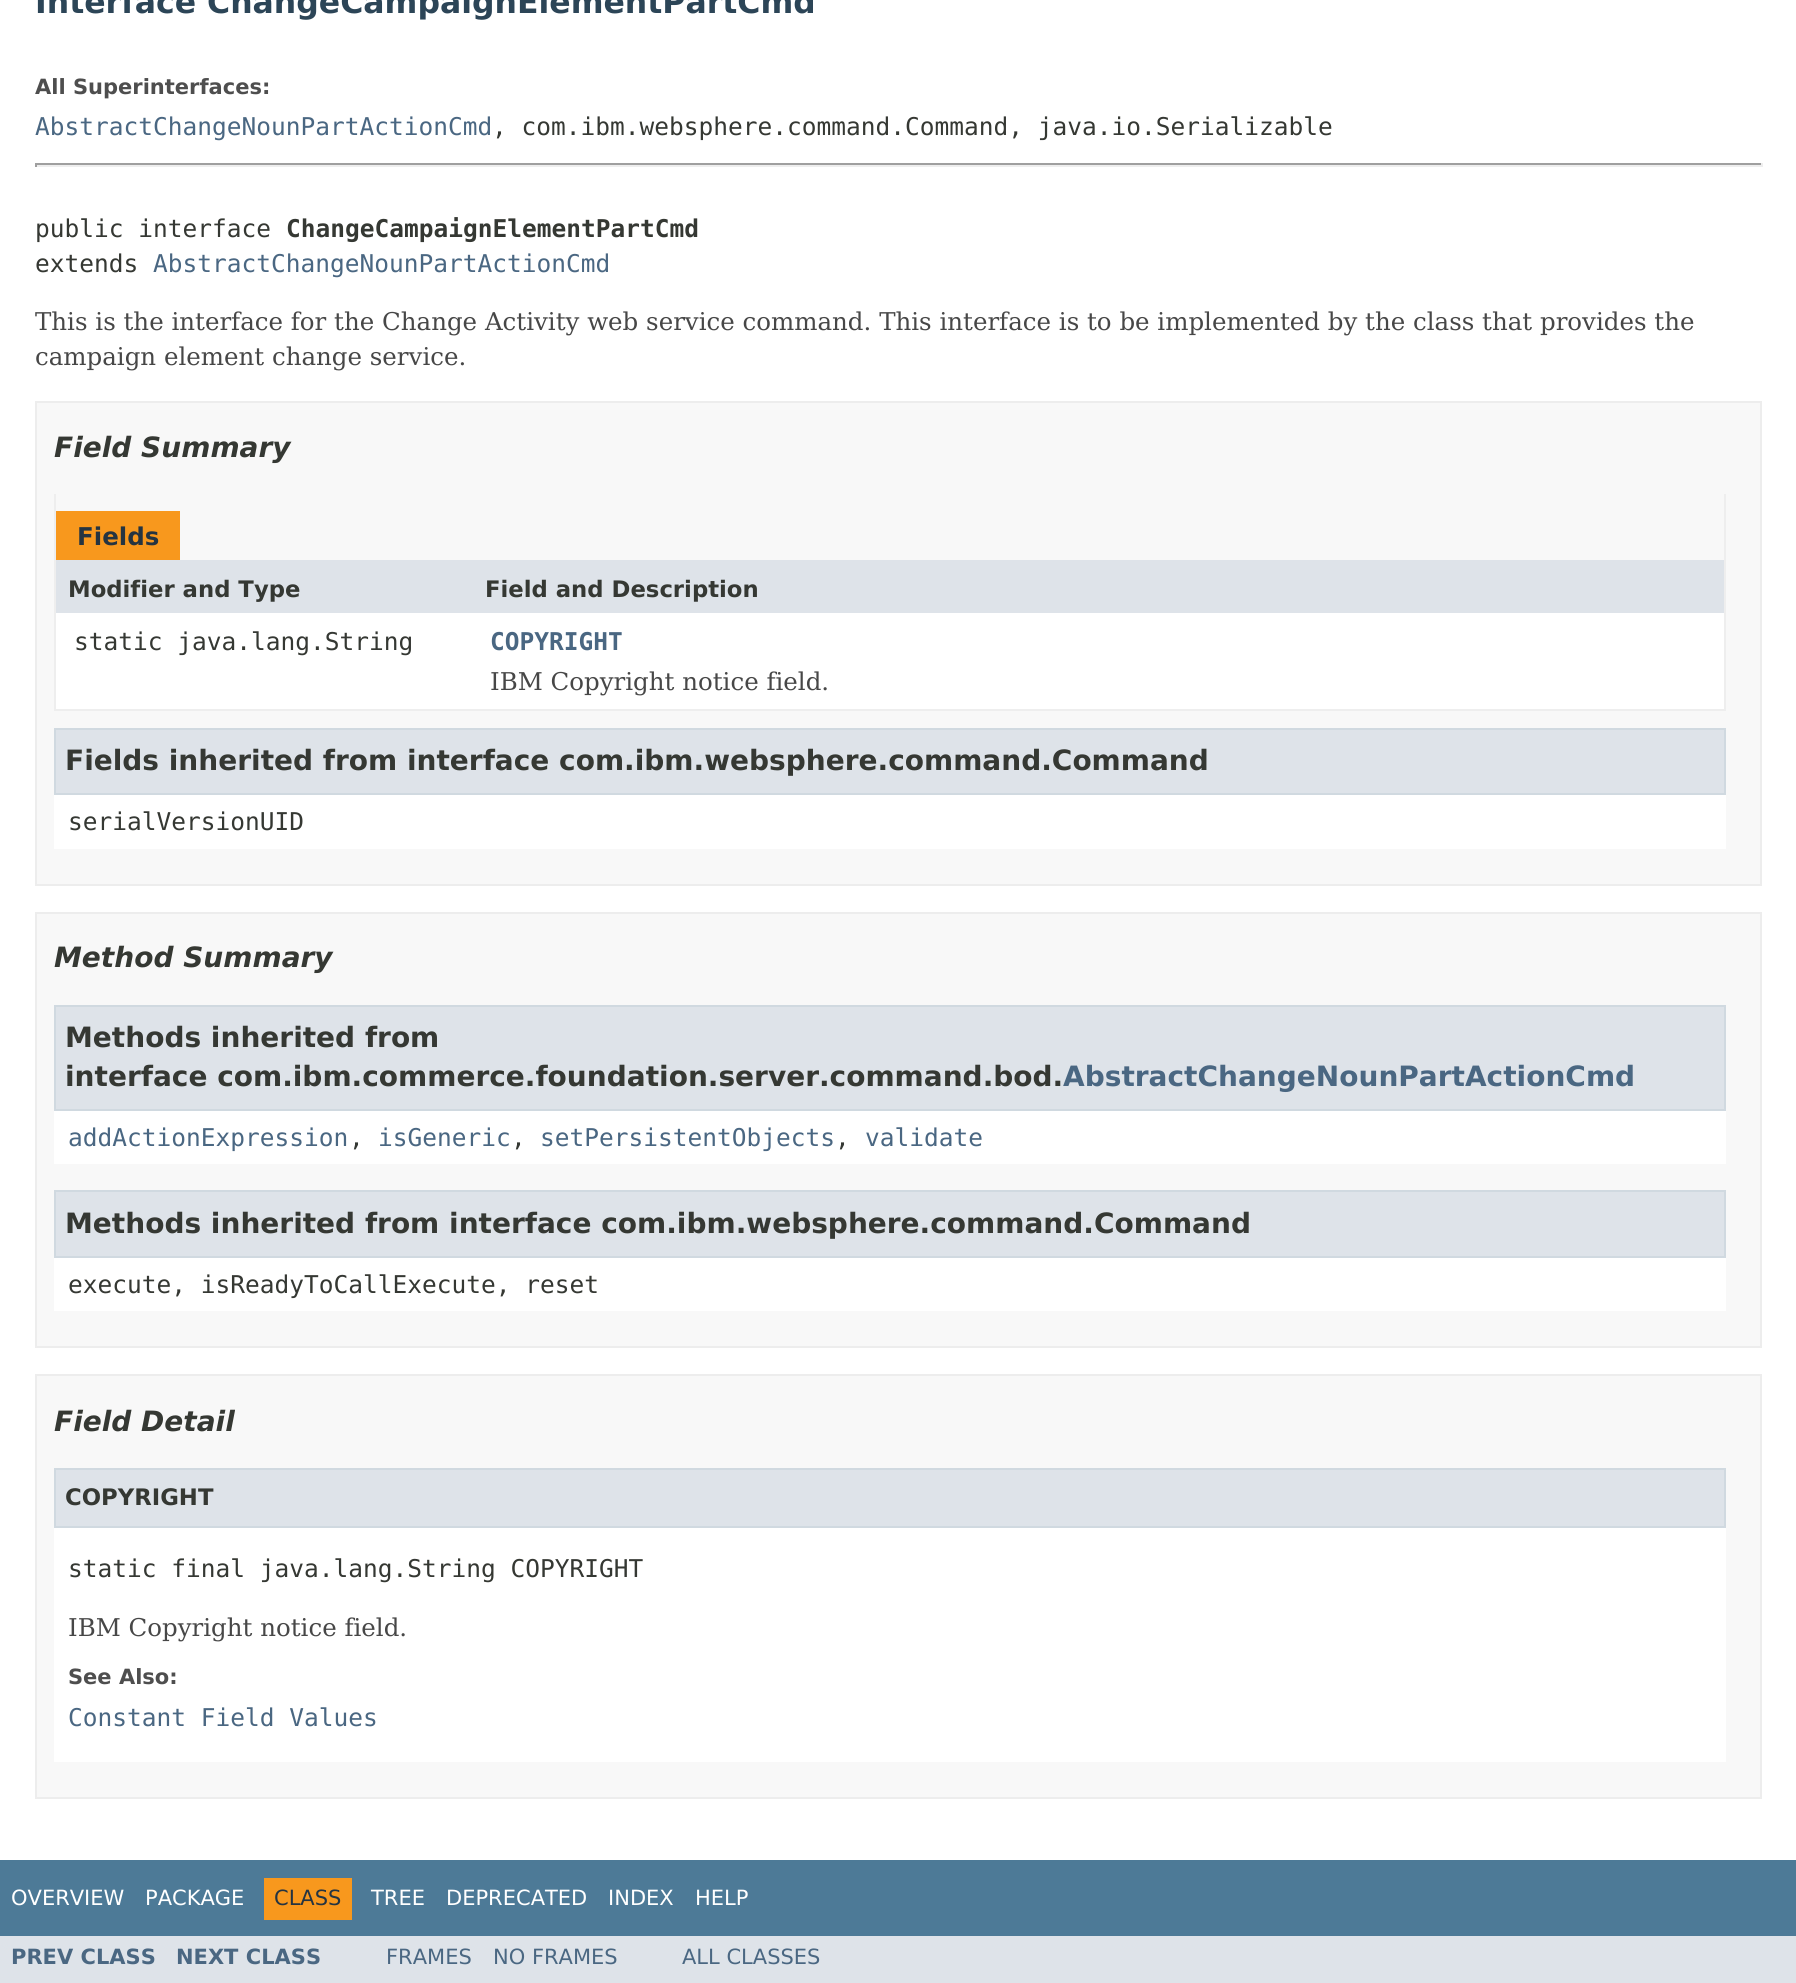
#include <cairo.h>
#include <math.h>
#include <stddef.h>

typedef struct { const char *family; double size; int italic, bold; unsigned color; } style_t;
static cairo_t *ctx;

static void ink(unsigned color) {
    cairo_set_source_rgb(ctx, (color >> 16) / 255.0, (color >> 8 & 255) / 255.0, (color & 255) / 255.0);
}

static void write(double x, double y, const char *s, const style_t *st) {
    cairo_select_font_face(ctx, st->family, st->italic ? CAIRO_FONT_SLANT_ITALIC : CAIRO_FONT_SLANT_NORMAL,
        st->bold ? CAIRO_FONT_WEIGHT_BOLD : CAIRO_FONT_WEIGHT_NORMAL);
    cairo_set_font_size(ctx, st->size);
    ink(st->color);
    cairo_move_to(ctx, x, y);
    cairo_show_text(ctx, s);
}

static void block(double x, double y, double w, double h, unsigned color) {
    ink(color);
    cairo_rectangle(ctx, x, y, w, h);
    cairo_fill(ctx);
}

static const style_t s1 = {"DejaVu Sans", 31.5, 0, 1, 0x2c4557};
static const style_t s2 = {"DejaVu Sans", 21, 0, 1, 0x4e4e4e};
static const style_t s3 = {"DejaVu Sans Mono", 24.5, 0, 0, 0x4a6782};
static const style_t s4 = {"DejaVu Sans Mono", 24.5, 0, 0, 0x353833};
static const style_t s5 = {"DejaVu Sans Mono", 24.5, 0, 1, 0x353833};
static const style_t s6 = {"DejaVu Serif", 24.5, 0, 0, 0x474747};
static const style_t s7 = {"DejaVu Sans", 28, 1, 1, 0x353833};
static const style_t s8 = {"DejaVu Sans", 24.5, 0, 1, 0x253441};
static const style_t s9 = {"DejaVu Sans", 22.75, 0, 1, 0x353833};
static const style_t s10 = {"DejaVu Sans Mono", 24.5, 0, 1, 0x4a6782};
static const style_t s11 = {"DejaVu Sans", 28, 0, 1, 0x353833};
static const style_t s12 = {"DejaVu Sans", 28, 0, 1, 0x4a6782};
static const style_t s13 = {"DejaVu Sans", 21, 0, 0, 0xffffff};
static const style_t s14 = {"DejaVu Sans", 21, 0, 0, 0x253441};
static const style_t s15 = {"DejaVu Sans", 21, 0, 1, 0x4a6782};
static const style_t s16 = {"DejaVu Sans", 21, 0, 0, 0x4a6782};

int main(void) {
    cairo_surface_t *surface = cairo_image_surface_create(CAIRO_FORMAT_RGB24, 1796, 1983);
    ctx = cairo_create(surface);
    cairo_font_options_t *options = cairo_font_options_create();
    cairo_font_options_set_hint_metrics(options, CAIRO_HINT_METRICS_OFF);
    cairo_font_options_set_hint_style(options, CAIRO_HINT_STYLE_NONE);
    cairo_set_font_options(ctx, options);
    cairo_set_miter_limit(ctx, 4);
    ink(0xffffff);
    cairo_paint(ctx);
    write(35, 13, "Interface ChangeCampaignElementPartCmd", &s1);
    write(35, 94, "All Superinterfaces:", &s2);
    write(35, 135, "AbstractChangeNounPartActionCmd", &s3);
    write(492, 135, ", com.ibm.websphere.command.Command, java.io.Serializable", &s4);
    block(35, 163, 1727, 2, 0x9f9f9f);
    block(1761, 163, 2, 4, 0xeeeeee);
    block(35, 165, 1727, 2, 0xeeeeee);
    block(35, 163, 2, 4, 0x9f9f9f);
    write(35, 237, "public interface", &s4);
    write(286, 237, "ChangeCampaignElementPartCmd", &s5);
    write(35, 272, "extends", &s4);
    write(153, 272, "AbstractChangeNounPartActionCmd", &s3);
    write(35, 330, "This is the interface for the Change Activity web service command. This interface is to be implemented by the class that provides the", &s6);
    write(35, 365, "campaign element change service.", &s6);
    ink(0xf8f8f8);
    cairo_rectangle(ctx, 36, 402, 1725, 483);
    cairo_fill_preserve(ctx);
    ink(0xededed);
    cairo_stroke(ctx);
    write(54, 457, "Field Summary", &s7);
    block(1724, 494, 2, 217, 0xeeeeee);
    block(54, 709, 1672, 2, 0xeeeeee);
    block(54, 494, 2, 217, 0xeeeeee);
    block(56, 511, 124, 49, 0xf8981d);
    write(77, 545, "Fields", &s8);
    block(56, 560, 1668, 53, 0xdee3e9);
    write(68, 597, "Modifier and Type", &s9);
    write(485, 597, "Field and Description", &s9);
    block(56, 613, 1668, 96, 0xffffff);
    write(74, 650, "static java.lang.String", &s4);
    write(490, 650, "COPYRIGHT", &s10);
    write(490, 690, "IBM Copyright notice field.", &s6);
    block(54, 795, 1672, 54, 0xffffff);
    ink(0xdee3e9);
    cairo_rectangle(ctx, 55, 729, 1670, 65);
    cairo_fill_preserve(ctx);
    ink(0xd0d9e0);
    cairo_stroke(ctx);
    write(65, 770, "Fields inherited from interface com.ibm.websphere.command.Command", &s11);
    write(68, 830, "serialVersionUID", &s4);
    ink(0xf8f8f8);
    cairo_rectangle(ctx, 36, 913, 1725, 434);
    cairo_fill_preserve(ctx);
    ink(0xededed);
    cairo_stroke(ctx);
    write(54, 967, "Method Summary", &s7);
    block(54, 1111, 1672, 53, 0xffffff);
    ink(0xdee3e9);
    cairo_rectangle(ctx, 55, 1006, 1670, 104);
    cairo_fill_preserve(ctx);
    ink(0xd0d9e0);
    cairo_stroke(ctx);
    write(65, 1047, "Methods inherited from", &s11);
    write(65, 1086, "interface com.ibm.commerce.foundation.server.command.bod.", &s11);
    write(1063, 1086, "AbstractChangeNounPartActionCmd", &s12);
    write(68, 1146, "addActionExpression", &s3);
    write(349, 1146, ",", &s4);
    write(378, 1146, "isGeneric", &s3);
    write(511, 1146, ",", &s4);
    write(540, 1146, "setPersistentObjects", &s3);
    write(835, 1146, ",", &s4);
    write(865, 1146, "validate", &s3);
    block(54, 1258, 1672, 53, 0xffffff);
    ink(0xdee3e9);
    cairo_rectangle(ctx, 55, 1191, 1670, 66);
    cairo_fill_preserve(ctx);
    ink(0xd0d9e0);
    cairo_stroke(ctx);
    write(65, 1233, "Methods inherited from interface com.ibm.websphere.command.Command", &s11);
    write(68, 1293, "execute, isReadyToCallExecute, reset", &s4);
    ink(0xf8f8f8);
    cairo_rectangle(ctx, 36, 1375, 1725, 423);
    cairo_fill_preserve(ctx);
    ink(0xededed);
    cairo_stroke(ctx);
    write(54, 1431, "Field Detail", &s7);
    block(54, 1528, 1672, 234, 0xffffff);
    ink(0xdee3e9);
    cairo_rectangle(ctx, 55, 1469, 1670, 58);
    cairo_fill_preserve(ctx);
    ink(0xd0d9e0);
    cairo_stroke(ctx);
    write(65, 1505, "COPYRIGHT", &s9);
    write(68, 1577, "static final java.lang.String COPYRIGHT", &s4);
    write(68, 1636, "IBM Copyright notice field.", &s6);
    write(68, 1684, "See Also:", &s2);
    write(68, 1726, "Constant Field Values", &s3);
    block(0, 1860, 1796, 76, 0x4d7a97);
    write(11, 1905, "OVERVIEW", &s13);
    write(145, 1905, "PACKAGE", &s13);
    block(264, 1878, 88, 42, 0xf8981d);
    write(274, 1905, "CLASS", &s14);
    write(371, 1905, "TREE", &s13);
    write(446, 1905, "DEPRECATED", &s13);
    write(608, 1905, "INDEX", &s13);
    write(695, 1905, "HELP", &s13);
    block(0, 1936, 1796, 47, 0xdee3e9);
    write(11, 1964, "PREV CLASS", &s15);
    write(176, 1964, "NEXT CLASS", &s15);
    write(386, 1964, "FRAMES", &s16);
    write(493, 1964, "NO FRAMES", &s16);
    write(682, 1964, "ALL CLASSES", &s16);
    cairo_surface_write_to_png(surface, "screenshot.png");
    cairo_font_options_destroy(options);
    cairo_destroy(ctx);
    cairo_surface_destroy(surface);
    return 0;
}
